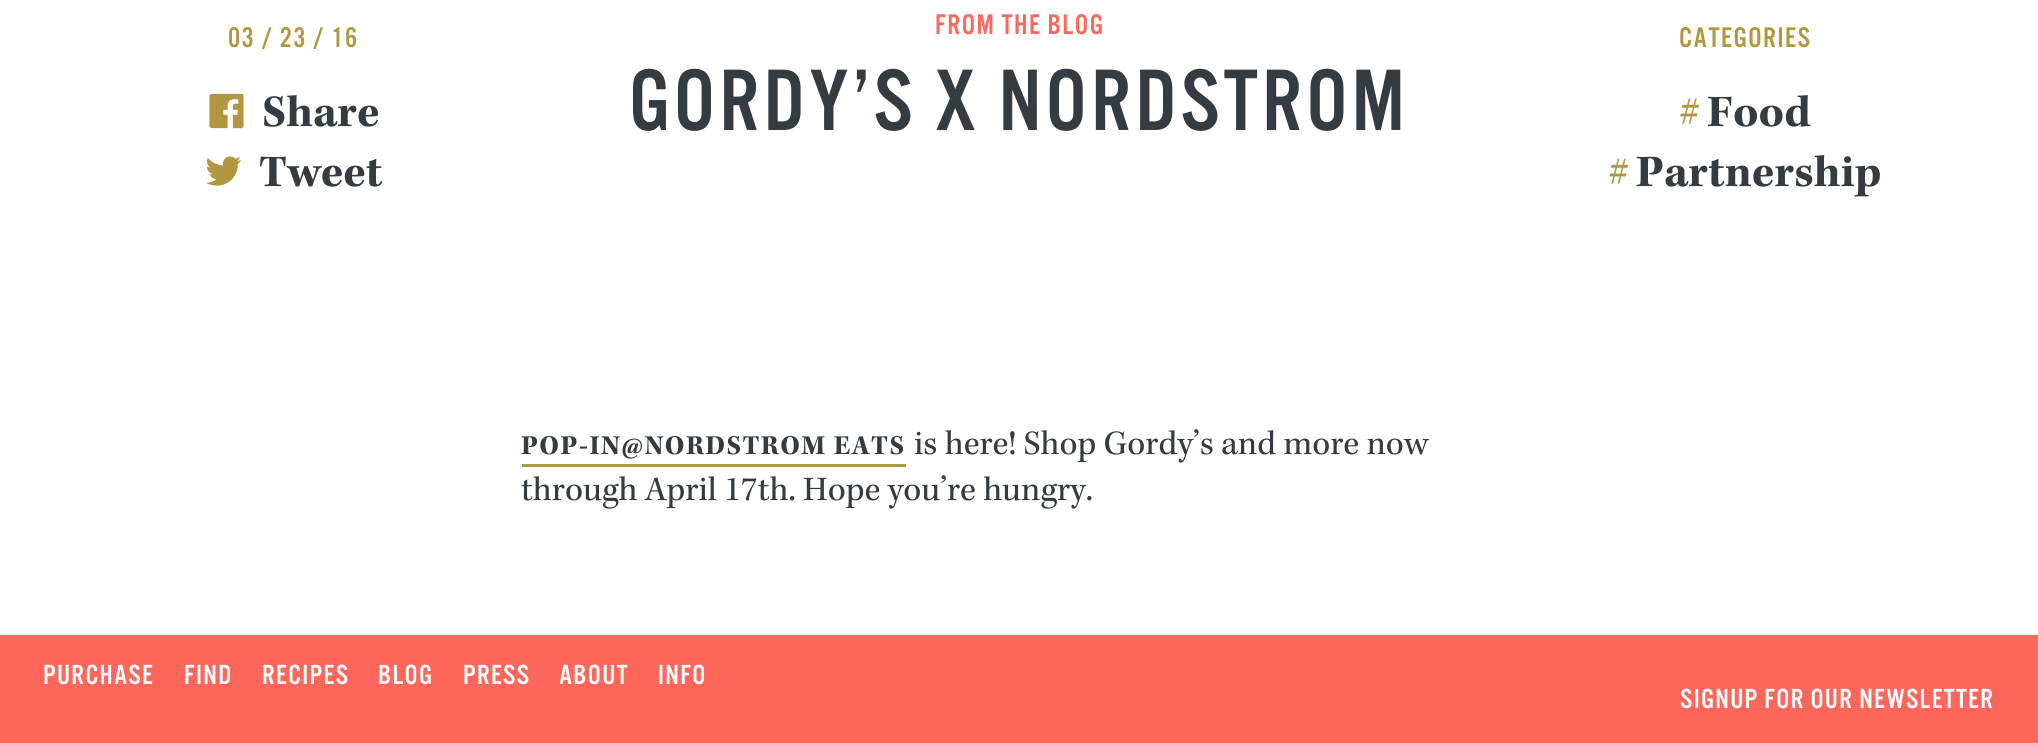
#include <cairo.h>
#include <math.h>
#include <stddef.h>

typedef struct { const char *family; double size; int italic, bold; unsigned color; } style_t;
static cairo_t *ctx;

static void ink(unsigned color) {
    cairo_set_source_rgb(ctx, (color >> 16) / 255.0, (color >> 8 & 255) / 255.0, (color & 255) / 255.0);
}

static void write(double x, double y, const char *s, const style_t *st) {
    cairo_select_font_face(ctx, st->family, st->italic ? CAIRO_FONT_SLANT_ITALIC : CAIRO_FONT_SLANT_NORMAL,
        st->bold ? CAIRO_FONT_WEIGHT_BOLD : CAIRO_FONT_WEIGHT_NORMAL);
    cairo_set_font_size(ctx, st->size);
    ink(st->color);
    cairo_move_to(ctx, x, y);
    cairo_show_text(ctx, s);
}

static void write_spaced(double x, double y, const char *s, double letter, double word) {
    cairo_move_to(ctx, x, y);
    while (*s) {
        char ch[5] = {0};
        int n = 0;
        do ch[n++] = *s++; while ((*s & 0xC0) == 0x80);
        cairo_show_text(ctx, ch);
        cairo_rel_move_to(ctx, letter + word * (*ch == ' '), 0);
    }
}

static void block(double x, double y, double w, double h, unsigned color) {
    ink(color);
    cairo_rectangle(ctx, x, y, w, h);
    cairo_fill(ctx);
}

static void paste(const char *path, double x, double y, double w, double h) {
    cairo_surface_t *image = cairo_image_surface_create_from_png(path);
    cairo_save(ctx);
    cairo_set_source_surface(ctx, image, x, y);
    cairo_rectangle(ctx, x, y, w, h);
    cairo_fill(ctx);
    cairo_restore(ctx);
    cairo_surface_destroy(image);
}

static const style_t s1 = {"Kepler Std", 46.25, 0, 1, 0x343c41};
static const style_t s2 = {"Kepler Std", 46.25, 0, 0, 0xb19742};
static const style_t s3 = {"Kepler Std", 35.1, 0, 0, 0x343c41};

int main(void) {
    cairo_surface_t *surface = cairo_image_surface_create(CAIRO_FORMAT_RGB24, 2038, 743);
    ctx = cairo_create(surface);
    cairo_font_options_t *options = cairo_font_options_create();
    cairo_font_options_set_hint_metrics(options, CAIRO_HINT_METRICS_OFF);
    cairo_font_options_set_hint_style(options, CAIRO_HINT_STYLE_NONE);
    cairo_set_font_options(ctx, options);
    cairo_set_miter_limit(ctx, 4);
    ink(0xffffff);
    cairo_paint(ctx);
    cairo_select_font_face(ctx, "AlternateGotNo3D", CAIRO_FONT_SLANT_NORMAL, CAIRO_FONT_WEIGHT_NORMAL);
    cairo_set_font_size(ctx, 29.5);
    ink(0xb19742);
    write_spaced(228, 47, "03 / 23 / 16", 1.5, 0);
    paste("pic1.png", 209, 93, 35, 36);
    write(262, 126, "Share", &s1);
    paste("pic2.png", 206, 156, 35, 30);
    write(259, 186, "Tweet", &s1);
    cairo_select_font_face(ctx, "AlternateGotNo3D", CAIRO_FONT_SLANT_NORMAL, CAIRO_FONT_WEIGHT_NORMAL);
    cairo_set_font_size(ctx, 29.5);
    ink(0xff665c);
    write_spaced(935, 34, "FROM THE BLOG", 1.5, 0);
    cairo_set_font_size(ctx, 90.5);
    ink(0x343c41);
    write_spaced(629, 130, "GORDY’S X NORDSTROM", 4.5, 0);
    cairo_set_font_size(ctx, 29.5);
    ink(0xb19742);
    write_spaced(1679, 47, "CATEGORIES", 1.5, 0);
    write(1679, 126, "#", &s2);
    write(1707, 126, "Food", &s1);
    write(1608, 186, "#", &s2);
    write(1636, 186, "Partnership", &s1);
    cairo_set_font_size(ctx, 28);
    write_spaced(521, 454, "POP-IN@NORDSTROM EATS", 1.4, 0);
    block(522, 464, 384, 3, 0xb19742);
    write(914, 454, "is here! Shop Gordy’s and more now", &s3);
    write(521, 500, "through April 17th. Hope you’re hungry.", &s3);
    block(0, 635, 2038, 108, 0xff665c);
    cairo_select_font_face(ctx, "AlternateGotNo3D", CAIRO_FONT_SLANT_NORMAL, CAIRO_FONT_WEIGHT_NORMAL);
    cairo_set_font_size(ctx, 28.75);
    ink(0xffffff);
    write_spaced(43, 684, "PURCHASE", 1.4, 0);
    write_spaced(184, 684, "FIND", 1.4, 0);
    write_spaced(262, 684, "RECIPES", 1.4, 0);
    write_spaced(378, 684, "BLOG", 1.4, 0);
    write_spaced(463, 684, "PRESS", 1.4, 0);
    write_spaced(559, 684, "ABOUT", 1.4, 0);
    write_spaced(658, 684, "INFO", 1.4, 0);
    write_spaced(1680, 708, "SIGNUP FOR OUR NEWSLETTER", 1.4, 0);
    cairo_surface_write_to_png(surface, "screenshot.png");
    cairo_font_options_destroy(options);
    cairo_destroy(ctx);
    cairo_surface_destroy(surface);
    return 0;
}
